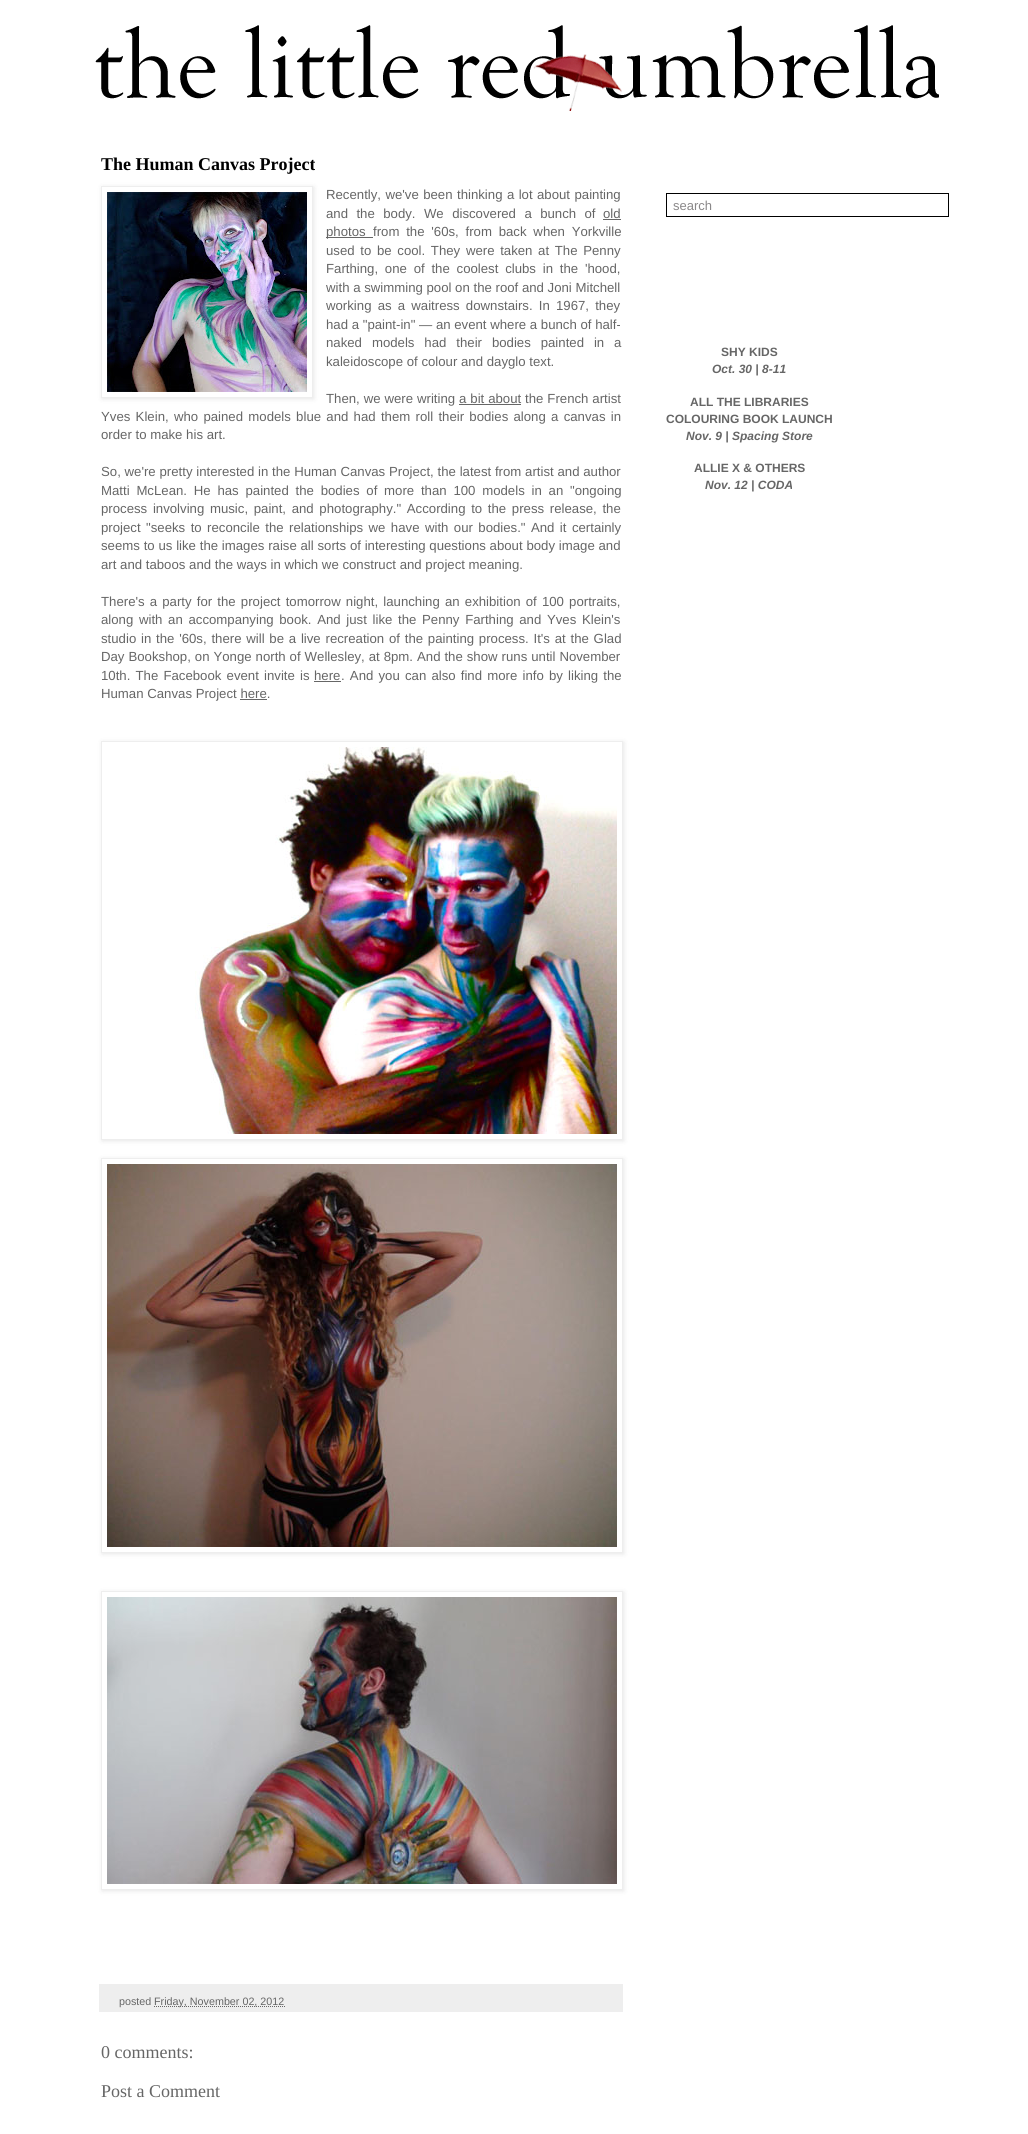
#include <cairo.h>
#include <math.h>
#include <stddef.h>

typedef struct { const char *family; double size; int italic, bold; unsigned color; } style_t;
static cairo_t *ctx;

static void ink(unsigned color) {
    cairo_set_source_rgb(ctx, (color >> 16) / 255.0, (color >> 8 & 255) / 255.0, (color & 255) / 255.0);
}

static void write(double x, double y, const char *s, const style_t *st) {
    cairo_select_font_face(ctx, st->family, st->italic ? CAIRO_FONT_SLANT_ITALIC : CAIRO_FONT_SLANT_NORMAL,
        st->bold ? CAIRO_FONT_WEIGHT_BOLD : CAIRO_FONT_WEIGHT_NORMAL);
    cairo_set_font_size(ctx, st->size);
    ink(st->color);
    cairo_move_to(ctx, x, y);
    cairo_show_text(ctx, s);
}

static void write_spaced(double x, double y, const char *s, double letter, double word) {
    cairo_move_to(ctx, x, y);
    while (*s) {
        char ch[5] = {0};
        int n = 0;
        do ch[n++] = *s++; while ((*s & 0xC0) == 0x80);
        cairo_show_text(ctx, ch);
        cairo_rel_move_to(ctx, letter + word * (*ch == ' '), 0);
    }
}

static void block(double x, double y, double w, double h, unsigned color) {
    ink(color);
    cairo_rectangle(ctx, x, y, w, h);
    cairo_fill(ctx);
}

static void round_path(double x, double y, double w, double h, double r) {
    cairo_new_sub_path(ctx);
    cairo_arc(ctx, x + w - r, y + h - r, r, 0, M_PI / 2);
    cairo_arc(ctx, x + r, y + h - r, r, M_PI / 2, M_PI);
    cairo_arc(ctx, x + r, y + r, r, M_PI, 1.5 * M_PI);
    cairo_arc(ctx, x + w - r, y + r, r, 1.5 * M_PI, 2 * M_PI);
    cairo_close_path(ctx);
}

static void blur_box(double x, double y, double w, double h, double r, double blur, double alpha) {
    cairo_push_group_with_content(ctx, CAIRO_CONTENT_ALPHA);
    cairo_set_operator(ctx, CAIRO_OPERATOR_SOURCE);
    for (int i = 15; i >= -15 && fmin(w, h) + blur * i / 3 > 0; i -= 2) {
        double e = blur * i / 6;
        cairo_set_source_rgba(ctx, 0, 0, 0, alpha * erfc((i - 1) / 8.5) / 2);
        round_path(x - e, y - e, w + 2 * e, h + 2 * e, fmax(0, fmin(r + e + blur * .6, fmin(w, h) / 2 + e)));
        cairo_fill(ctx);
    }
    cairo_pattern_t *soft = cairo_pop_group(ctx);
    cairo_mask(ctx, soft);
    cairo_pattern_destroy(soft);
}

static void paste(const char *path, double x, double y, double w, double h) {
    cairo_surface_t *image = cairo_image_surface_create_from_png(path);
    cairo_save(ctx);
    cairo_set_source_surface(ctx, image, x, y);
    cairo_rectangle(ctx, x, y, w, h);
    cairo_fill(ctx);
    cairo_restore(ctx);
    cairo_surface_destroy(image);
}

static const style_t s1 = {"Liberation Serif", 18, 0, 1, 0x000000};
static const style_t s2 = {"Liberation Sans", 13.2, 0, 0, 0x666666};
static const style_t s3 = {"Liberation Sans", 10.75, 0, 0, 0x666666};
static const style_t s4 = {"Liberation Serif", 18, 0, 0, 0x666666};
static const style_t s5 = {"Liberation Sans", 13, 0, 0, 0x8a8889};
static const style_t s6 = {"Liberation Sans", 12, 0, 1, 0x666666};
static const style_t s7 = {"Liberation Sans", 12, 1, 1, 0x666666};

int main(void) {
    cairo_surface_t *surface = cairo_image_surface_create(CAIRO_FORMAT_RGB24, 1028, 2134);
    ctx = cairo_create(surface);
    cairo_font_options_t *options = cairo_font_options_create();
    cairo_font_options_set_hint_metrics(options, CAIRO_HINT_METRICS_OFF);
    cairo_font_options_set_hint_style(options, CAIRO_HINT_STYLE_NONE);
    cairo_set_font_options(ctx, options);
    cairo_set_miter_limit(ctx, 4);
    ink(0xffffff);
    cairo_paint(ctx);
    paste("pic1.png", 95, 25, 844, 86);
    write(101, 170, "The Human Canvas Project", &s1);
    cairo_save(ctx);
    cairo_set_fill_rule(ctx, CAIRO_FILL_RULE_EVEN_ODD);
    cairo_new_path(ctx);
    cairo_move_to(ctx, 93, 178);
    cairo_line_to(ctx, 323, 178);
    cairo_line_to(ctx, 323, 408);
    cairo_line_to(ctx, 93, 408);
    cairo_close_path(ctx);
    cairo_move_to(ctx, 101, 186);
    cairo_line_to(ctx, 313, 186);
    cairo_line_to(ctx, 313, 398);
    cairo_line_to(ctx, 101, 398);
    cairo_close_path(ctx);
    cairo_clip(ctx);
    ink(0x000000);
    blur_box(102, 187, 212, 212, 0, 2.5, 0.1);
    cairo_restore(ctx);
    cairo_rectangle(ctx, 101.5, 186.5, 211, 211);
    ink(0xeeeeee);
    cairo_set_line_width(ctx, 1);
    cairo_stroke(ctx);
    paste("pic2.png", 107, 192, 200, 200);
    cairo_select_font_face(ctx, "Liberation Sans", CAIRO_FONT_SLANT_NORMAL, CAIRO_FONT_WEIGHT_NORMAL);
    cairo_set_font_size(ctx, 13.2);
    ink(0x666666);
    write_spaced(326, 199, "Recently, we've been thinking a lot about painting", 0, 0.75);
    write_spaced(326, 218, "and the body. We discovered a bunch of", 0, 4.75);
    write(603, 218, "old", &s2);
    block(603, 219, 18, 1, 0x666666);
    block(326, 237, 47, 1, 0x666666);
    write(326, 236, "photos", &s2);
    write_spaced(373, 236, "from the '60s, from back when Yorkville", 0, 3.1);
    write_spaced(326, 255, "used to be cool. They were taken at The Penny", 0, 2);
    write_spaced(326, 273, "Farthing, one of the coolest clubs in the 'hood,", 0, 3.1);
    write(326, 292, "with a swimming pool on the roof and Joni Mitchell", &s2);
    write_spaced(326, 310, "working as a waitress downstairs. In 1967, they", 0, 2.5);
    write(326, 329, "had a \"paint-in\" — an event where a bunch of half-", &s2);
    write_spaced(326, 347, "naked models had their bodies painted in a", 0, 6.25);
    write(326, 366, "kaleidoscope of colour and dayglo text.", &s2);
    write_spaced(326, 403, "Then, we were writing a bit about the French artist", 0, 0.25);
    block(459, 404, 62, 1, 0x666666);
    write_spaced(101, 421, "Yves Klein, who pained models blue and had them roll their bodies along a canvas in", 0, 1.6);
    write(101, 439, "order to make his art.", &s2);
    write_spaced(101, 476, "So, we're pretty interested in the Human Canvas Project, the latest from artist and author", 0, 0.1);
    write_spaced(101, 495, "Matti McLean. He has painted the bodies of more than 100 models in an \"ongoing", 0, 3.1);
    write_spaced(101, 513, "process involving music, paint, and photography.\" According to the press release, the", 0, 2);
    write_spaced(101, 532, "project \"seeks to reconcile the relationships we have with our bodies.\" And it certainly", 0, 1.75);
    write_spaced(101, 550, "seems to us like the images raise all sorts of interesting questions about body image and", 0, 0.1);
    write(101, 569, "art and taboos and the ways in which we construct and project meaning.", &s2);
    write_spaced(101, 606, "There's a party for the project tomorrow night, launching an exhibition of 100 portraits,", 0, 1.5);
    write_spaced(101, 624, "along with an accompanying book. And just like the Penny Farthing and Yves Klein's", 0, 2);
    write_spaced(101, 643, "studio in the '60s, there will be a live recreation of the painting process. It's at the Glad", 0, 1.1);
    write_spaced(101, 661, "Day Bookshop, on Yonge north of Wellesley, at 8pm. And the show runs until November", 0, 0.3);
    write_spaced(101, 680, "10th. The Facebook event invite is", 0, 1.5);
    write(314, 680, "here", &s2);
    block(314, 681, 27, 1, 0x666666);
    write_spaced(341, 680, ". And you can also find more info by liking the", 0, 1.5);
    write(101, 698, "Human Canvas Project here.", &s2);
    block(240, 699, 27, 1, 0x666666);
    cairo_save(ctx);
    cairo_set_fill_rule(ctx, CAIRO_FILL_RULE_EVEN_ODD);
    cairo_new_path(ctx);
    cairo_move_to(ctx, 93, 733);
    cairo_line_to(ctx, 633, 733);
    cairo_line_to(ctx, 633, 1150);
    cairo_line_to(ctx, 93, 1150);
    cairo_close_path(ctx);
    cairo_move_to(ctx, 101, 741);
    cairo_line_to(ctx, 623, 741);
    cairo_line_to(ctx, 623, 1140);
    cairo_line_to(ctx, 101, 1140);
    cairo_close_path(ctx);
    cairo_clip(ctx);
    ink(0x000000);
    blur_box(102, 742, 522, 399, 0, 2.5, 0.1);
    cairo_restore(ctx);
    cairo_rectangle(ctx, 101.5, 741.5, 521, 398);
    ink(0xeeeeee);
    cairo_stroke(ctx);
    paste("pic3.png", 195, 747, 422, 387);
    cairo_save(ctx);
    cairo_set_fill_rule(ctx, CAIRO_FILL_RULE_EVEN_ODD);
    cairo_new_path(ctx);
    cairo_move_to(ctx, 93, 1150);
    cairo_line_to(ctx, 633, 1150);
    cairo_line_to(ctx, 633, 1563);
    cairo_line_to(ctx, 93, 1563);
    cairo_close_path(ctx);
    cairo_move_to(ctx, 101, 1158);
    cairo_line_to(ctx, 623, 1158);
    cairo_line_to(ctx, 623, 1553);
    cairo_line_to(ctx, 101, 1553);
    cairo_close_path(ctx);
    cairo_clip(ctx);
    ink(0x000000);
    blur_box(102, 1159, 522, 395, 0, 2.5, 0.1);
    cairo_restore(ctx);
    cairo_rectangle(ctx, 101.5, 1158.5, 521, 394);
    cairo_stroke(ctx);
    paste("pic4.png", 107, 1164, 510, 383);
    cairo_save(ctx);
    cairo_set_fill_rule(ctx, CAIRO_FILL_RULE_EVEN_ODD);
    cairo_new_path(ctx);
    cairo_move_to(ctx, 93, 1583);
    cairo_line_to(ctx, 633, 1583);
    cairo_line_to(ctx, 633, 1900);
    cairo_line_to(ctx, 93, 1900);
    cairo_close_path(ctx);
    cairo_move_to(ctx, 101, 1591);
    cairo_line_to(ctx, 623, 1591);
    cairo_line_to(ctx, 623, 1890);
    cairo_line_to(ctx, 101, 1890);
    cairo_close_path(ctx);
    cairo_clip(ctx);
    ink(0x000000);
    blur_box(102, 1592, 522, 299, 0, 2.5, 0.1);
    cairo_restore(ctx);
    cairo_rectangle(ctx, 101.5, 1591.5, 521, 298);
    cairo_stroke(ctx);
    paste("pic5.png", 107, 1597, 510, 287);
    block(99, 1984, 524, 28, 0xeeeeee);
    write(119, 2005, "posted", &s3);
    cairo_new_path(ctx);
    cairo_move_to(ctx, 154, 2006.5);
    cairo_line_to(ctx, 285, 2006.5);
    cairo_set_dash(ctx, (double[]){1, 1}, 2, 0);
    cairo_stroke(ctx);
    write(154, 2005, "Friday, November 02, 2012", &s3);
    write(101, 2058, "0 comments:", &s4);
    write(101, 2097, "Post a Comment", &s4);
    cairo_rectangle(ctx, 666.5, 193.5, 282, 23);
    ink(0x000000);
    cairo_set_dash(ctx, NULL, 0, 0);
    cairo_stroke(ctx);
    write(673, 210, "search", &s5);
    write(721, 356, "SHY KIDS", &s6);
    write(712, 373, "Oct. 30 | 8-11", &s7);
    write(690, 406, "ALL THE LIBRARIES", &s6);
    write(666, 423, "COLOURING BOOK LAUNCH", &s6);
    write(686, 440, "Nov. 9 | Spacing Store", &s7);
    write(694, 472, "ALLIE X & OTHERS", &s6);
    write(705, 489, "Nov. 12 | CODA", &s7);
    cairo_surface_write_to_png(surface, "screenshot.png");
    cairo_font_options_destroy(options);
    cairo_destroy(ctx);
    cairo_surface_destroy(surface);
    return 0;
}
